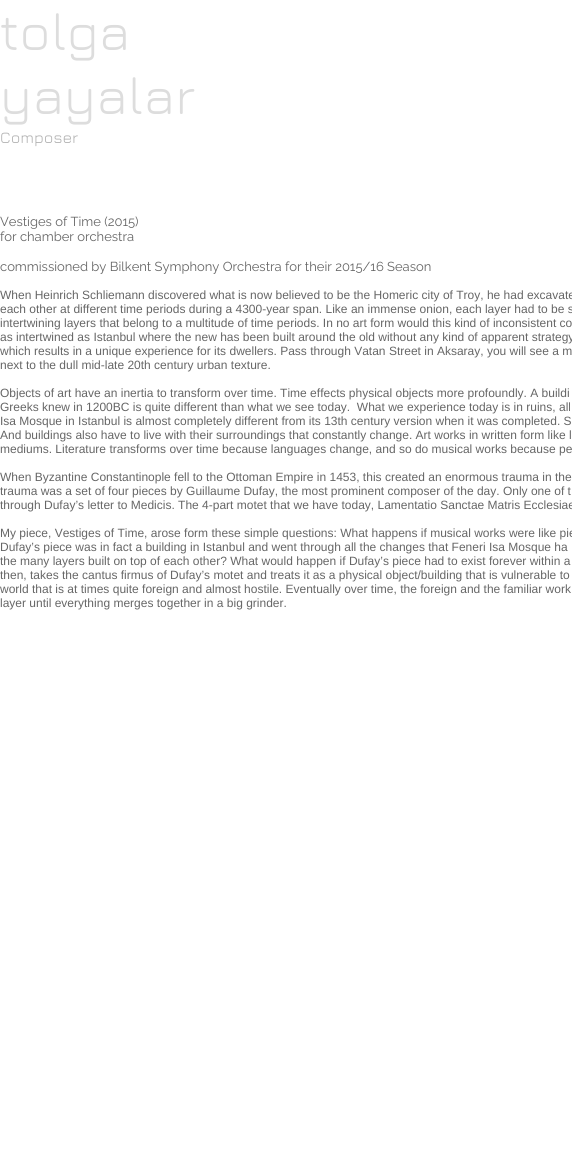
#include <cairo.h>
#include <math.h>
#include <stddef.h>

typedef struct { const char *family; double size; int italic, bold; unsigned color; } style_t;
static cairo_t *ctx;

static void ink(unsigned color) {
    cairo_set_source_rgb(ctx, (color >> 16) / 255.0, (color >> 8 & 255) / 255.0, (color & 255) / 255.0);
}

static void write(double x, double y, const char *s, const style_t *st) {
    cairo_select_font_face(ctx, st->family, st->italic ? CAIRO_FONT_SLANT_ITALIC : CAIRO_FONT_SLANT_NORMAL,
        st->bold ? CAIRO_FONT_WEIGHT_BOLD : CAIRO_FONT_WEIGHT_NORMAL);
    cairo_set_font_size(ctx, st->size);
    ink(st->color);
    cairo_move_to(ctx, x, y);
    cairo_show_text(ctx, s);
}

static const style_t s1 = {"Jura", 53, 0, 0, 0xdddddd};
static const style_t s2 = {"Jura", 16, 0, 0, 0xafafaf};
static const style_t s3 = {"Raleway", 13, 0, 0, 0x666666};
static const style_t s4 = {"Liberation Sans", 12, 0, 0, 0x666666};

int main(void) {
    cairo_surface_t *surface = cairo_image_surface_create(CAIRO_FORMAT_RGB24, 572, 1169);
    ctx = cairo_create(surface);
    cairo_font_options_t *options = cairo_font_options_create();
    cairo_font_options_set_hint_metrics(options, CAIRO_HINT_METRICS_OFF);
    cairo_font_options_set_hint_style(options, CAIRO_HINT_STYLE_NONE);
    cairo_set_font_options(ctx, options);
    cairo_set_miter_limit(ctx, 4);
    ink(0xffffff);
    cairo_paint(ctx);
    write(0, 50, "tolga", &s1);
    write(0, 114, "yayalar", &s1);
    write(0, 143, "Composer", &s2);
    write(0, 226, "Vestiges of Time (2015)", &s3);
    write(0, 241, "for chamber orchestra", &s3);
    write(0, 271, "commissioned by Bilkent Symphony Orchestra for their 2015/16 Season", &s3);
    write(0, 299, "When Heinrich Schliemann discovered what is now believed to be the Homeric city of Troy, he had excavate", &s4);
    write(0, 313, "each other at different time periods during a 4300-year span. Like an immense onion, each layer had to be s", &s4);
    write(0, 327, "intertwining layers that belong to a multitude of time periods. In no art form would this kind of inconsistent co", &s4);
    write(0, 341, "as intertwined as Istanbul where the new has been built around the old without any kind of apparent strategy", &s4);
    write(0, 355, "which results in a unique experience for its dwellers. Pass through Vatan Street in Aksaray, you will see a m", &s4);
    write(0, 369, "next to the dull mid-late 20th century urban texture.", &s4);
    write(0, 397, "Objects of art have an inertia to transform over time. Time effects physical objects more profoundly. A buildi", &s4);
    write(0, 411, "Greeks knew in 1200BC is quite different than what we see today.  What we experience today is in ruins, all", &s4);
    write(0, 425, "Isa Mosque in Istanbul is almost completely different from its 13th century version when it was completed. S", &s4);
    write(0, 439, "And buildings also have to live with their surroundings that constantly change. Art works in written form like l", &s4);
    write(0, 453, "mediums. Literature transforms over time because languages change, and so do musical works because pe", &s4);
    write(0, 481, "When Byzantine Constantinople fell to the Ottoman Empire in 1453, this created an enormous trauma in the", &s4);
    write(0, 495, "trauma was a set of four pieces by Guillaume Dufay, the most prominent composer of the day. Only one of t", &s4);
    write(0, 509, "through Dufay’s letter to Medicis. The 4-part motet that we have today, Lamentatio Sanctae Matris Ecclesiae", &s4);
    write(0, 537, "My piece, Vestiges of Time, arose form these simple questions: What happens if musical works were like pie", &s4);
    write(0, 551, "Dufay’s piece was in fact a building in Istanbul and went through all the changes that Feneri Isa Mosque ha", &s4);
    write(0, 565, "the many layers built on top of each other? What would happen if Dufay’s piece had to exist forever within a", &s4);
    write(0, 579, "then, takes the cantus firmus of Dufay’s motet and treats it as a physical object/building that is vulnerable to", &s4);
    write(0, 593, "world that is at times quite foreign and almost hostile. Eventually over time, the foreign and the familiar work", &s4);
    write(0, 607, "layer until everything merges together in a big grinder.", &s4);
    cairo_surface_write_to_png(surface, "screenshot.png");
    cairo_font_options_destroy(options);
    cairo_destroy(ctx);
    cairo_surface_destroy(surface);
    return 0;
}
